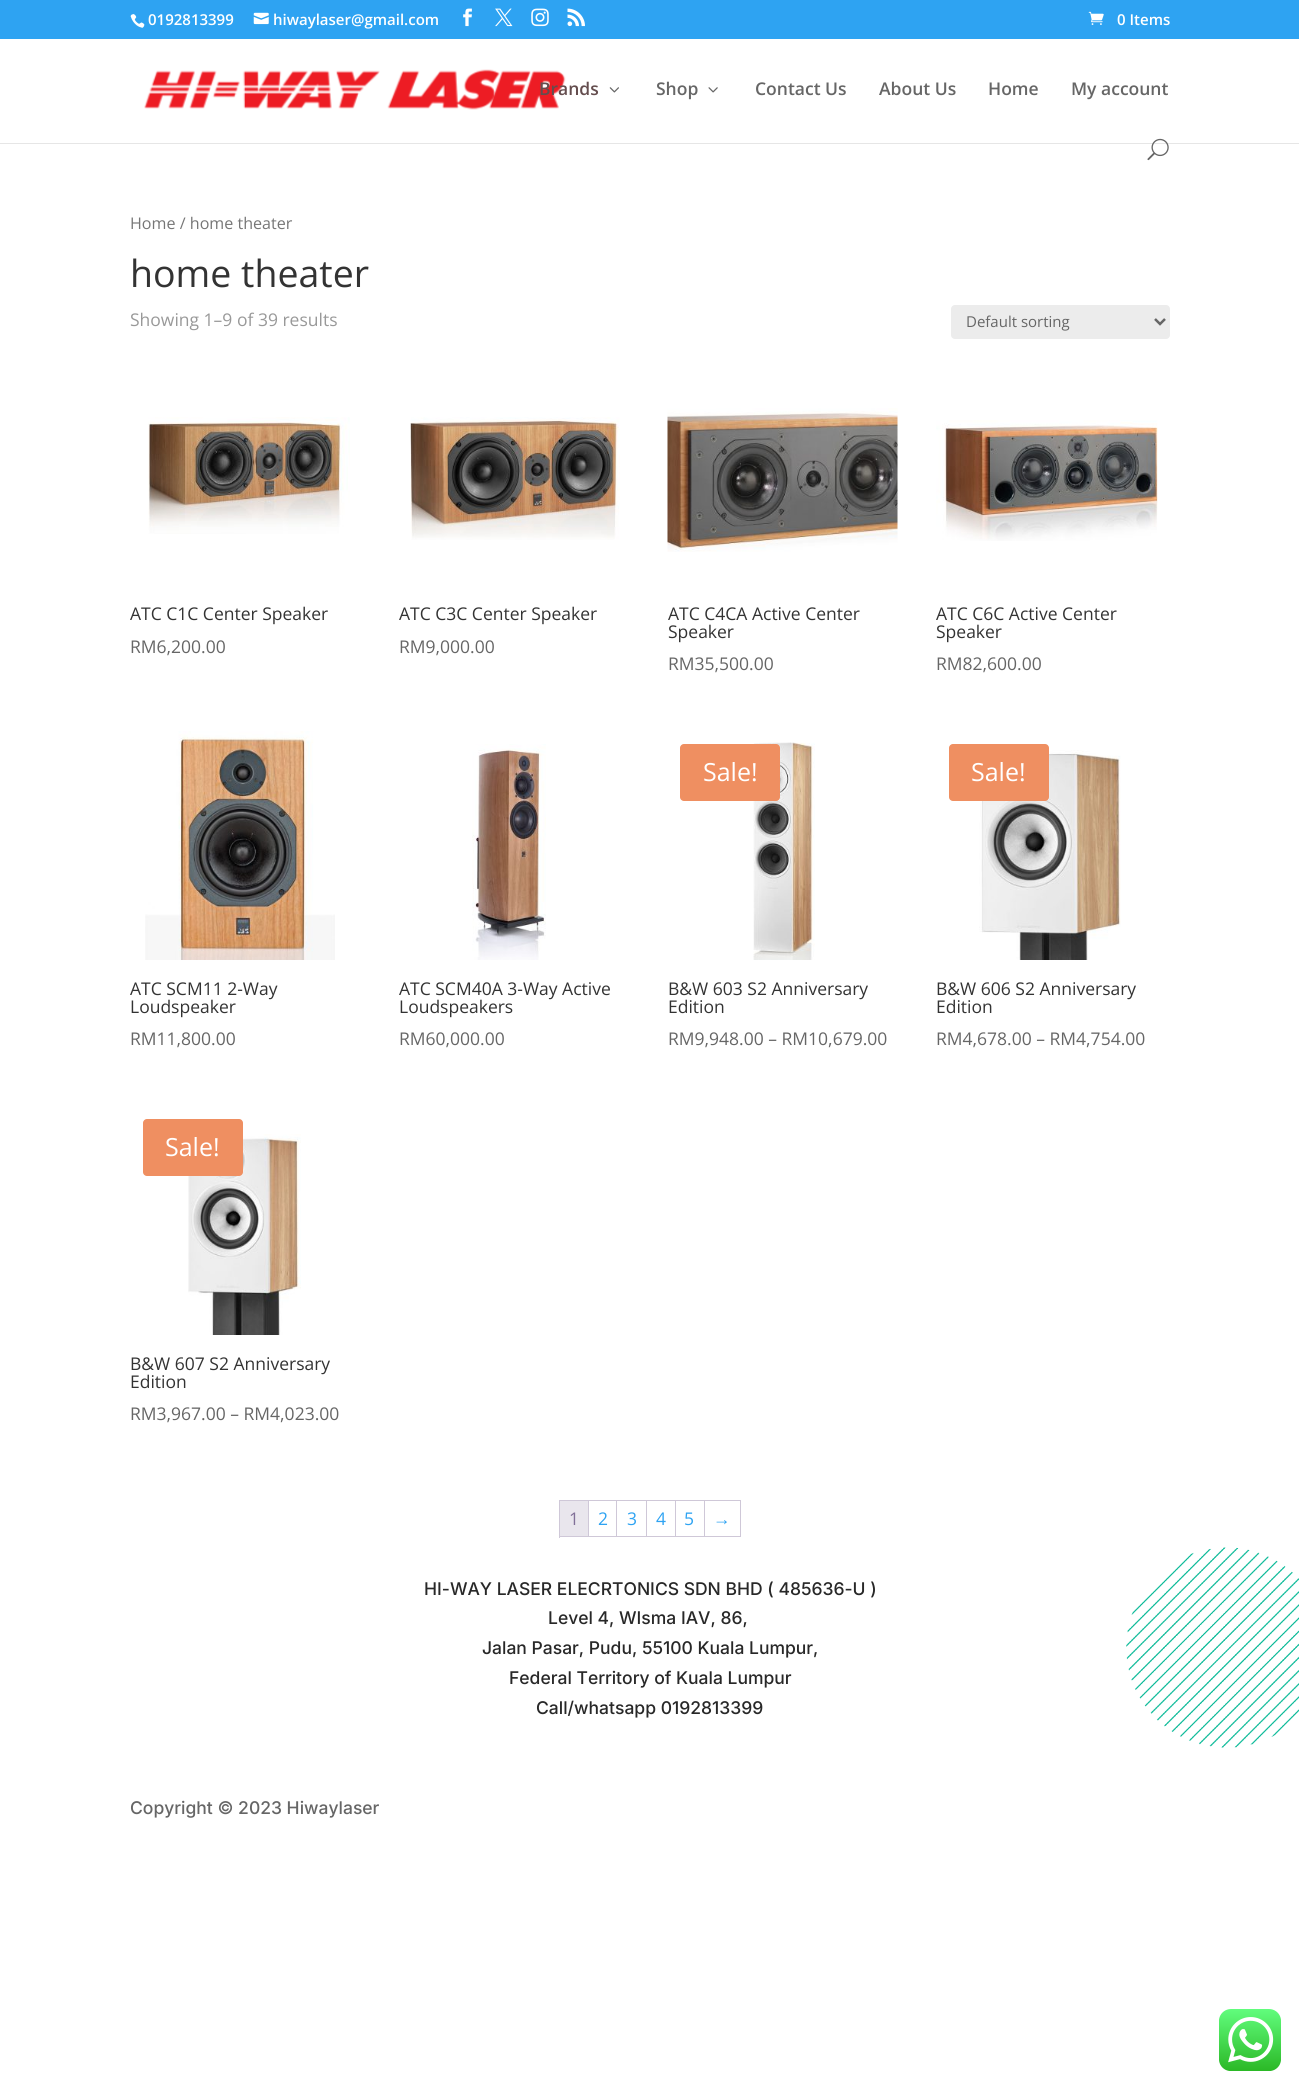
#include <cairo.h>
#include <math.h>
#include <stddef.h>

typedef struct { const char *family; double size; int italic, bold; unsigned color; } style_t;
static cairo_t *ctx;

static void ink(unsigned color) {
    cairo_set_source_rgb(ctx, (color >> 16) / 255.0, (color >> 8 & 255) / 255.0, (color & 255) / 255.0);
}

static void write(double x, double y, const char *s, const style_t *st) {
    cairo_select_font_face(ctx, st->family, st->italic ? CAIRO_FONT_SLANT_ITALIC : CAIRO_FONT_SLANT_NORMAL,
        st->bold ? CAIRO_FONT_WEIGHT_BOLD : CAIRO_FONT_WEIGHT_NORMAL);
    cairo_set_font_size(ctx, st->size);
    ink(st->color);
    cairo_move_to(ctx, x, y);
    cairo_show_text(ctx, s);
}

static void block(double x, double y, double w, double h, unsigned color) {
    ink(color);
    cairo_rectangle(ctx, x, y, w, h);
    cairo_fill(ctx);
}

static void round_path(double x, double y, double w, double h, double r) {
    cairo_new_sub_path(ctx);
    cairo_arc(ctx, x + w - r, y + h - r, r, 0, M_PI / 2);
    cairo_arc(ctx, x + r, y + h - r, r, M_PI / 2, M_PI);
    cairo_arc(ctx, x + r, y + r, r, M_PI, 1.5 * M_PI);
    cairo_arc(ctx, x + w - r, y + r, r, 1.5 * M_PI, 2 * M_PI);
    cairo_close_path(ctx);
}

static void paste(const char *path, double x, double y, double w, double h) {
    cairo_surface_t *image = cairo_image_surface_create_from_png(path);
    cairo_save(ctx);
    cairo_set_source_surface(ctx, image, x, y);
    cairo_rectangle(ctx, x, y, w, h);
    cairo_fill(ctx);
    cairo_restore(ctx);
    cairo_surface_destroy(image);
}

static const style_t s1 = {"Open Sans SemiBold", 15, 0, 0, 0xffffff};
static const style_t s2 = {"Open Sans SemiBold", 17.5, 0, 0, 0x644d4e};
static const style_t s3 = {"Open Sans SemiBold", 17.5, 0, 0, 0x666666};
static const style_t s4 = {"Open Sans", 16.1, 0, 0, 0x767676};
static const style_t s5 = {"Open Sans", 37.5, 0, 0, 0x333333};
static const style_t s6 = {"Open Sans", 17.5, 0, 0, 0x999999};
static const style_t s7 = {"Open Sans", 15, 0, 0, 0x666666};
static const style_t s8 = {"Open Sans", 17.5, 0, 0, 0x333333};
static const style_t s9 = {"Open Sans", 17.5, 0, 0, 0x666666};
static const style_t s10 = {"Open Sans", 25, 0, 0, 0xffffff};
static const style_t s11 = {"Open Sans", 17.5, 0, 0, 0x816f98};
static const style_t s12 = {"Open Sans", 17.5, 0, 0, 0x2ea3f2};
static const style_t s13 = {"Liberation Sans", 17.5, 0, 0, 0x2ea3f2};
static const style_t s14 = {"Inter Medium", 17.5, 0, 0, 0x282828};
static const style_t s15 = {"Inter Medium", 17.5, 0, 0, 0x666666};

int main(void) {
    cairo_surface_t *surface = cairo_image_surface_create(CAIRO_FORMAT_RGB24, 1299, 2090);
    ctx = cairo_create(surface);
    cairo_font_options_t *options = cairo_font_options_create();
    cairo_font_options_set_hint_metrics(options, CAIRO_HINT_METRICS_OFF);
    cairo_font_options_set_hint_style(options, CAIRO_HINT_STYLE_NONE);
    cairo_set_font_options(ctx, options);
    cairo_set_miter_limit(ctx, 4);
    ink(0xffffff);
    cairo_paint(ctx);
    block(0, 0, 1299, 39, 0x2ea3f2);
    paste("pic1.png", 130, 14, 15, 14);
    write(148, 25, "0192813399", &s1);
    paste("pic2.png", 253, 12, 16, 13);
    write(273, 25, "hiwaylaser@gmail.com", &s1);
    paste("pic3.png", 463, 8, 9, 19);
    paste("pic4.png", 495, 8, 18, 19);
    paste("pic5.png", 531, 8, 18, 19);
    paste("pic6.png", 567, 8, 18, 19);
    paste("pic7.png", 1088, 11, 16, 14);
    write(1117, 25, "0 Items", &s1);
    block(0, 143, 1299, 1, 0xe6e6e6);
    paste("pic8.png", 144, 69, 422, 41);
    write(539, 95, "Brands", &s2);
    paste("pic9.png", 609, 87, 10, 6);
    write(656, 95, "Shop", &s3);
    paste("pic10.png", 708, 87, 10, 6);
    write(755, 95, "Contact Us", &s3);
    write(879, 95, "About Us", &s3);
    write(988, 95, "Home", &s3);
    write(1071, 95, "My account", &s3);
    paste("pic11.png", 1147, 138, 22, 23);
    write(130, 229, "Home / home theater", &s4);
    write(130, 287, "home theater", &s5);
    write(130, 326, "Showing 1–9 of 39 results", &s6);
    ink(0xececec);
    round_path(951, 305, 219, 34, 4);
    cairo_fill(ctx);
    cairo_new_path(ctx);
    cairo_move_to(ctx, 1155, 319);
    cairo_line_to(ctx, 1160, 324);
    cairo_line_to(ctx, 1165, 319);
    ink(0x666666);
    cairo_set_line_width(ctx, 2.5);
    cairo_stroke(ctx);
    write(966, 327, "Default sorting", &s7);
    paste("pic12.png", 148, 417, 202, 117);
    write(130, 620, "ATC C1C Center Speaker", &s8);
    write(130, 653, "RM6,200.00", &s9);
    paste("pic13.png", 410, 417, 210, 123);
    write(399, 620, "ATC C3C Center Speaker", &s8);
    write(399, 653, "RM9,000.00", &s9);
    paste("pic14.png", 667, 408, 231, 144);
    write(668, 620, "ATC C4CA Active Center", &s8);
    write(668, 638, "Speaker", &s8);
    write(668, 670, "RM35,500.00", &s9);
    paste("pic15.png", 936, 420, 222, 121);
    write(936, 620, "ATC C6C Active Center", &s8);
    write(936, 638, "Speaker", &s8);
    write(936, 670, "RM82,600.00", &s9);
    paste("pic16.png", 145, 731, 190, 229);
    write(130, 995, "ATC SCM11 2-Way", &s8);
    write(130, 1013, "Loudspeaker", &s8);
    write(130, 1045, "RM11,800.00", &s9);
    paste("pic17.png", 472, 744, 74, 216);
    write(399, 995, "ATC SCM40A 3-Way Active", &s8);
    write(399, 1013, "Loudspeakers", &s8);
    write(399, 1045, "RM60,000.00", &s9);
    paste("pic18.png", 753, 742, 62, 218);
    ink(0xef8f61);
    round_path(680, 744, 100, 57, 4);
    cairo_fill(ctx);
    write(703, 781, "Sale!", &s10);
    write(668, 995, "B&W 603 S2 Anniversary", &s8);
    write(668, 1013, "Edition", &s8);
    write(668, 1045, "RM9,948.00 – RM10,679.00", &s9);
    paste("pic19.png", 979, 750, 142, 210);
    ink(0xef8f61);
    round_path(949, 744, 100, 57, 4);
    cairo_fill(ctx);
    write(971, 781, "Sale!", &s10);
    write(936, 995, "B&W 606 S2 Anniversary", &s8);
    write(936, 1013, "Edition", &s8);
    write(936, 1045, "RM4,678.00 – RM4,754.00", &s9);
    paste("pic20.png", 188, 1134, 113, 201);
    ink(0xef8f61);
    round_path(143, 1119, 100, 57, 4);
    cairo_fill(ctx);
    write(165, 1156, "Sale!", &s10);
    write(130, 1370, "B&W 607 S2 Anniversary", &s8);
    write(130, 1388, "Edition", &s8);
    write(130, 1420, "RM3,967.00 – RM4,023.00", &s9);
    block(559, 1500, 182, 1, 0xcfc8d8);
    block(559, 1536, 182, 1, 0xcfc8d8);
    block(559, 1500, 1, 38, 0xcfc8d8);
    block(588, 1501, 1, 35, 0xcfc8d8);
    block(560, 1501, 28, 35, 0xe9e6ed);
    write(569, 1525, "1", &s11);
    block(616, 1501, 1, 35, 0xcfc8d8);
    write(598, 1525, "2", &s12);
    block(646, 1501, 1, 35, 0xcfc8d8);
    write(627, 1525, "3", &s12);
    block(675, 1501, 1, 35, 0xcfc8d8);
    write(656, 1525, "4", &s12);
    block(704, 1501, 1, 35, 0xcfc8d8);
    write(684, 1525, "5", &s12);
    block(740, 1501, 1, 35, 0xcfc8d8);
    write(713, 1525, "→", &s13);
    paste("pic21.png", 1126, 1547, 173, 201);
    write(424, 1595, "HI-WAY LASER ELECRTONICS SDN BHD ( 485636-U )", &s14);
    write(548, 1624, "Level 4, WIsma IAV, 86,", &s14);
    write(482, 1654, "Jalan Pasar, Pudu, 55100 Kuala Lumpur,", &s14);
    write(509, 1684, "Federal Territory of Kuala Lumpur", &s14);
    write(536, 1714, "Call/whatsapp 0192813399", &s14);
    write(130, 1814, "Copyright © 2023 Hiwaylaser", &s15);
    paste("pic22.png", 1219, 2009, 62, 62);
    cairo_surface_write_to_png(surface, "screenshot.png");
    cairo_font_options_destroy(options);
    cairo_destroy(ctx);
    cairo_surface_destroy(surface);
    return 0;
}
